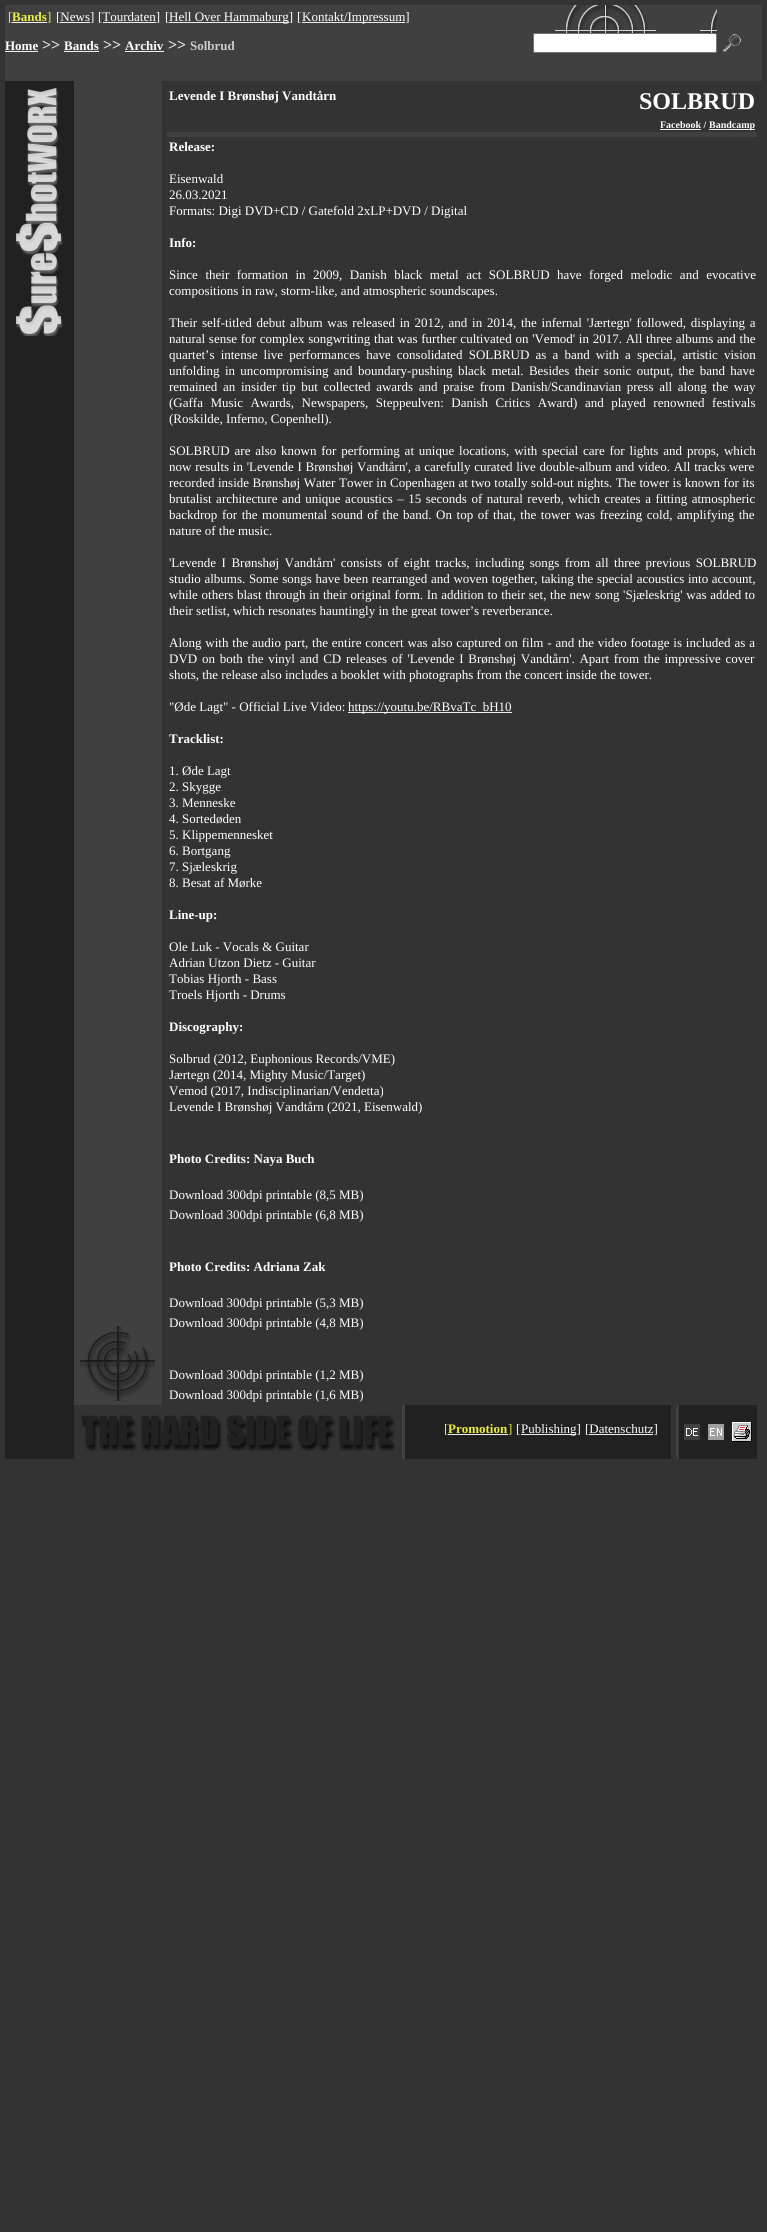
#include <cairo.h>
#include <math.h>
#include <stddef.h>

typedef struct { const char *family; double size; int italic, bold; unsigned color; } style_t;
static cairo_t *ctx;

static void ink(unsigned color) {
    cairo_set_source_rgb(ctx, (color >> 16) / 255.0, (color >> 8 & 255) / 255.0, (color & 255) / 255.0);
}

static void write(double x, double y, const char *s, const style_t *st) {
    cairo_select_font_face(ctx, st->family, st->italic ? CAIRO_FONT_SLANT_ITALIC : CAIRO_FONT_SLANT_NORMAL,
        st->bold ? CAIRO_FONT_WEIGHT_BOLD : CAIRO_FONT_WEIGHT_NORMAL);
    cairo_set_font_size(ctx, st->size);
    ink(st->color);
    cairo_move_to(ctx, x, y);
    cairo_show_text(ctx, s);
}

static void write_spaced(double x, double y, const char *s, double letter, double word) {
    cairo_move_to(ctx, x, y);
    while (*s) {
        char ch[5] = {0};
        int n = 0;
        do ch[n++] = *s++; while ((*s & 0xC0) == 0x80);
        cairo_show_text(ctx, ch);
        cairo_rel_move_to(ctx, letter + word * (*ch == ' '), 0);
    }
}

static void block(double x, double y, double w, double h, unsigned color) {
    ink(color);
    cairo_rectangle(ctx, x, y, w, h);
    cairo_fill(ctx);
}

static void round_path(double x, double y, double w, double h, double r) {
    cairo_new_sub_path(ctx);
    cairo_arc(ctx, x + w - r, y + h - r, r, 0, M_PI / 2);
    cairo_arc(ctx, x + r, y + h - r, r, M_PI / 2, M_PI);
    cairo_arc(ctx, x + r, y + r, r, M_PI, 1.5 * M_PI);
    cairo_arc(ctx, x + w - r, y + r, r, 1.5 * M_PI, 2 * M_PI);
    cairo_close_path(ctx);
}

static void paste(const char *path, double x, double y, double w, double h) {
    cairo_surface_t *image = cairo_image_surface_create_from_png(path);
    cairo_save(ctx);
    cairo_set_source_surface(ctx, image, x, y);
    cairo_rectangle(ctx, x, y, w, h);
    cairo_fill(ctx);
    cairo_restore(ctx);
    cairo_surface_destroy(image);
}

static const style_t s1 = {"Liberation Serif", 13, 0, 0, 0xeeee44};
static const style_t s2 = {"Liberation Serif", 13, 0, 1, 0xeeee44};
static const style_t s3 = {"Liberation Serif", 13, 0, 0, 0xffffff};
static const style_t s4 = {"Liberation Serif", 13, 0, 1, 0xffffff};
static const style_t s5 = {"Liberation Serif", 16, 0, 1, 0xeeeeee};
static const style_t s6 = {"Liberation Serif", 13, 0, 1, 0xcccccc};
static const style_t s7 = {"Liberation Serif", 24, 0, 1, 0xffffff};
static const style_t s8 = {"Liberation Serif", 10, 0, 1, 0xffffff};

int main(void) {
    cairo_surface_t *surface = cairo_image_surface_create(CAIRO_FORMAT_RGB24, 767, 2232);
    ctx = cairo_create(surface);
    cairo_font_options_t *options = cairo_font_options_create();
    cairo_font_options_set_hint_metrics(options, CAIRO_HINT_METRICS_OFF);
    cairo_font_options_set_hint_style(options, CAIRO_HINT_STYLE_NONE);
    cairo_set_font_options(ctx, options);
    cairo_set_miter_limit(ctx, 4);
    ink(0x333333);
    cairo_paint(ctx);
    block(5, 5, 757, 76, 0x404040);
    write(8, 21, "[", &s1);
    block(12, 22, 35, 1, 0xeeeeee);
    write(12, 21, "Bands", &s2);
    write(47, 21, "]", &s1);
    write(56, 21, "[News]", &s3);
    block(60, 22, 30, 1, 0xeeeeee);
    write(98, 21, "[Tourdaten]", &s3);
    block(103, 22, 53, 1, 0xeeeeee);
    write(165, 21, "[", &s3);
    block(169, 22, 120, 1, 0xeeeeee);
    write(169, 21, "Hell Over Hammaburg]", &s3);
    write(297, 21, "[", &s3);
    block(302, 22, 103, 1, 0xeeeeee);
    write(302, 21, "Kontakt/Impressum]", &s3);
    paste("pic1.png", 533, 5, 184, 30);
    round_path(533.5, 33.5, 183, 19, 1.5);
    cairo_fill_preserve(ctx);
    ink(0x767676);
    cairo_set_line_width(ctx, 1);
    cairo_stroke(ctx);
    paste("pic2.png", 723, 34, 18, 18);
    write(5, 50, "Home", &s4);
    block(5, 51, 33, 1, 0xeeeeee);
    write(42, 50, ">>", &s5);
    write(64, 50, "Bands", &s4);
    block(64, 51, 35, 1, 0xeeeeee);
    write(103, 50, ">>", &s5);
    write(125, 50, "Archiv", &s4);
    block(125, 51, 39, 1, 0xeeeeee);
    write(168, 50, ">>", &s5);
    write(190, 50, "Solbrud", &s6);
    block(80, 81, 75, 1324, 0x404040);
    paste("pic3.png", 80, 1326, 75, 75);
    block(5, 81, 69, 1378, 0x212121);
    paste("pic4.png", 16, 88, 47, 248);
    block(74, 81, 6, 1324, 0x404040);
    block(155, 81, 7, 1324, 0x404040);
    write(169, 100, "Levende I Brønshøj Vandtårn", &s4);
    write(639, 109, "SOLBRUD", &s7);
    write(660, 128, "Facebook /", &s8);
    block(660, 129, 41, 1, 0xeeeeee);
    block(709, 129, 46, 1, 0xeeeeee);
    write(709, 128, "Bandcamp", &s8);
    block(167, 132, 590, 5, 0x404040);
    write(169, 151, "Release:", &s4);
    write(169, 183, "Eisenwald", &s3);
    write(169, 199, "26.03.2021", &s3);
    write(169, 215, "Formats: Digi DVD+CD / Gatefold 2xLP+DVD / Digital", &s3);
    write(169, 247, "Info:", &s4);
    cairo_select_font_face(ctx, "Liberation Serif", CAIRO_FONT_SLANT_NORMAL, CAIRO_FONT_WEIGHT_NORMAL);
    write_spaced(169, 279, "Since their formation in 2009, Danish black metal act SOLBRUD have forged melodic and evocative", 0, 4.25);
    write(169, 295, "compositions in raw, storm-like, and atmospheric soundscapes.", &s3);
    write_spaced(169, 327, "Their self-titled debut album was released in 2012, and in 2014, the infernal 'Jærtegn' followed, displaying a", 0, 1.5);
    write_spaced(169, 343, "natural sense for complex songwriting that was further cultivated on 'Vemod' in 2017. All three albums and the", 0, 0.5);
    write_spaced(169, 359, "quartet’s intense live performances have consolidated SOLBRUD as a band with a special, artistic vision", 0, 2.9);
    write_spaced(169, 375, "unfolding in uncompromising and boundary-pushing black metal. Besides their sonic output, the band have", 0, 2.1);
    write_spaced(169, 391, "remained an insider tip but collected awards and praise from Danish/Scandinavian press all along the way", 0, 2.4);
    write_spaced(169, 407, "(Gaffa Music Awards, Newspapers, Steppeulven: Danish Critics Award) and played renowned festivals", 0, 4.25);
    write(169, 423, "(Roskilde, Inferno, Copenhell).", &s3);
    write_spaced(169, 455, "SOLBRUD are also known for performing at unique locations, with special care for lights and props, which", 0, 1.6);
    write_spaced(169, 471, "now results in 'Levende I Brønshøj Vandtårn', a carefully curated live double-album and video. All tracks were", 0, 0.5);
    write_spaced(169, 487, "recorded inside Brønshøj Water Tower in Copenhagen at two totally sold-out nights. The tower is known for its", 0, 0.25);
    write_spaced(169, 503, "brutalist architecture and unique acoustics – 15 seconds of natural reverb, which creates a fitting atmospheric", 0, 1.25);
    write_spaced(169, 519, "backdrop for the monumental sound of the band. On top of that, the tower was freezing cold, amplifying the", 0, 1.3);
    write(169, 535, "nature of the music.", &s3);
    write_spaced(169, 567, "'Levende I Brønshøj Vandtårn' consists of eight tracks, including songs from all three previous SOLBRUD", 0, 2.25);
    write_spaced(169, 583, "studio albums. Some songs have been rearranged and woven together, taking the special acoustics into account,", 0, 0.4);
    write_spaced(169, 599, "while others blast through in their original form. In addition to their set, the new song 'Sjæleskrig' was added to", 0, 0.4);
    write(169, 615, "their setlist, which resonates hauntingly in the great tower’s reverberance.", &s3);
    write_spaced(169, 647, "Along with the audio part, the entire concert was also captured on film - and the video footage is included as a", 0, 0.6);
    write_spaced(169, 663, "DVD on both the vinyl and CD releases of 'Levende I Brønshøj Vandtårn'. Apart from the impressive cover", 0, 1.5);
    write(169, 679, "shots, the release also includes a booklet with photographs from the concert inside the tower.", &s3);
    write(169, 711, "\"Øde Lagt\" - Official Live Video:", &s3);
    block(348, 712, 164, 1, 0xeeeeee);
    write(348, 711, "https://youtu.be/RBvaTc_bH10", &s3);
    write(169, 743, "Tracklist:", &s4);
    write(169, 775, "1. Øde Lagt", &s3);
    write(169, 791, "2. Skygge", &s3);
    write(169, 807, "3. Menneske", &s3);
    write(169, 823, "4. Sortedøden", &s3);
    write(169, 839, "5. Klippemennesket", &s3);
    write(169, 855, "6. Bortgang", &s3);
    write(169, 871, "7. Sjæleskrig", &s3);
    write(169, 887, "8. Besat af Mørke", &s3);
    write(169, 919, "Line-up:", &s4);
    write(169, 951, "Ole Luk - Vocals & Guitar", &s3);
    write(169, 967, "Adrian Utzon Dietz - Guitar", &s3);
    write(169, 983, "Tobias Hjorth - Bass", &s3);
    write(169, 999, "Troels Hjorth - Drums", &s3);
    write(169, 1031, "Discography:", &s4);
    write(169, 1063, "Solbrud (2012, Euphonious Records/VME)", &s3);
    write(169, 1079, "Jærtegn (2014, Mighty Music/Target)", &s3);
    write(169, 1095, "Vemod (2017, Indisciplinarian/Vendetta)", &s3);
    write(169, 1111, "Levende I Brønshøj Vandtårn (2021, Eisenwald)", &s3);
    write(169, 1163, "Photo Credits: Naya Buch", &s4);
    write(169, 1199, "Download 300dpi printable (8,5 MB)", &s3);
    write(169, 1219, "Download 300dpi printable (6,8 MB)", &s3);
    write(169, 1271, "Photo Credits: Adriana Zak", &s4);
    write(169, 1307, "Download 300dpi printable (5,3 MB)", &s3);
    write(169, 1327, "Download 300dpi printable (4,8 MB)", &s3);
    write(169, 1379, "Download 300dpi printable (1,2 MB)", &s3);
    write(169, 1399, "Download 300dpi printable (1,6 MB)", &s3);
    paste("pic5.png", 81, 1415, 314, 36);
    block(402, 1405, 3, 54, 0x404040);
    block(405, 1405, 266, 54, 0x212121);
    write(444, 1433, "[", &s1);
    block(448, 1434, 60, 1, 0xeeeeee);
    write(448, 1433, "Promotion", &s2);
    write(508, 1433, "]", &s1);
    write(516, 1433, "[", &s3);
    block(521, 1434, 55, 1, 0xeeeeee);
    write(521, 1433, "Publishing]", &s3);
    write(585, 1433, "[Datenschutz]", &s3);
    block(589, 1434, 64, 1, 0xeeeeee);
    block(676, 1405, 3, 54, 0x404040);
    block(679, 1405, 78, 54, 0x212121);
    paste("pic6.png", 684, 1424, 16, 16);
    paste("pic7.png", 708, 1424, 16, 16);
    paste("pic8.png", 732, 1422, 20, 20);
    cairo_surface_write_to_png(surface, "screenshot.png");
    cairo_font_options_destroy(options);
    cairo_destroy(ctx);
    cairo_surface_destroy(surface);
    return 0;
}
